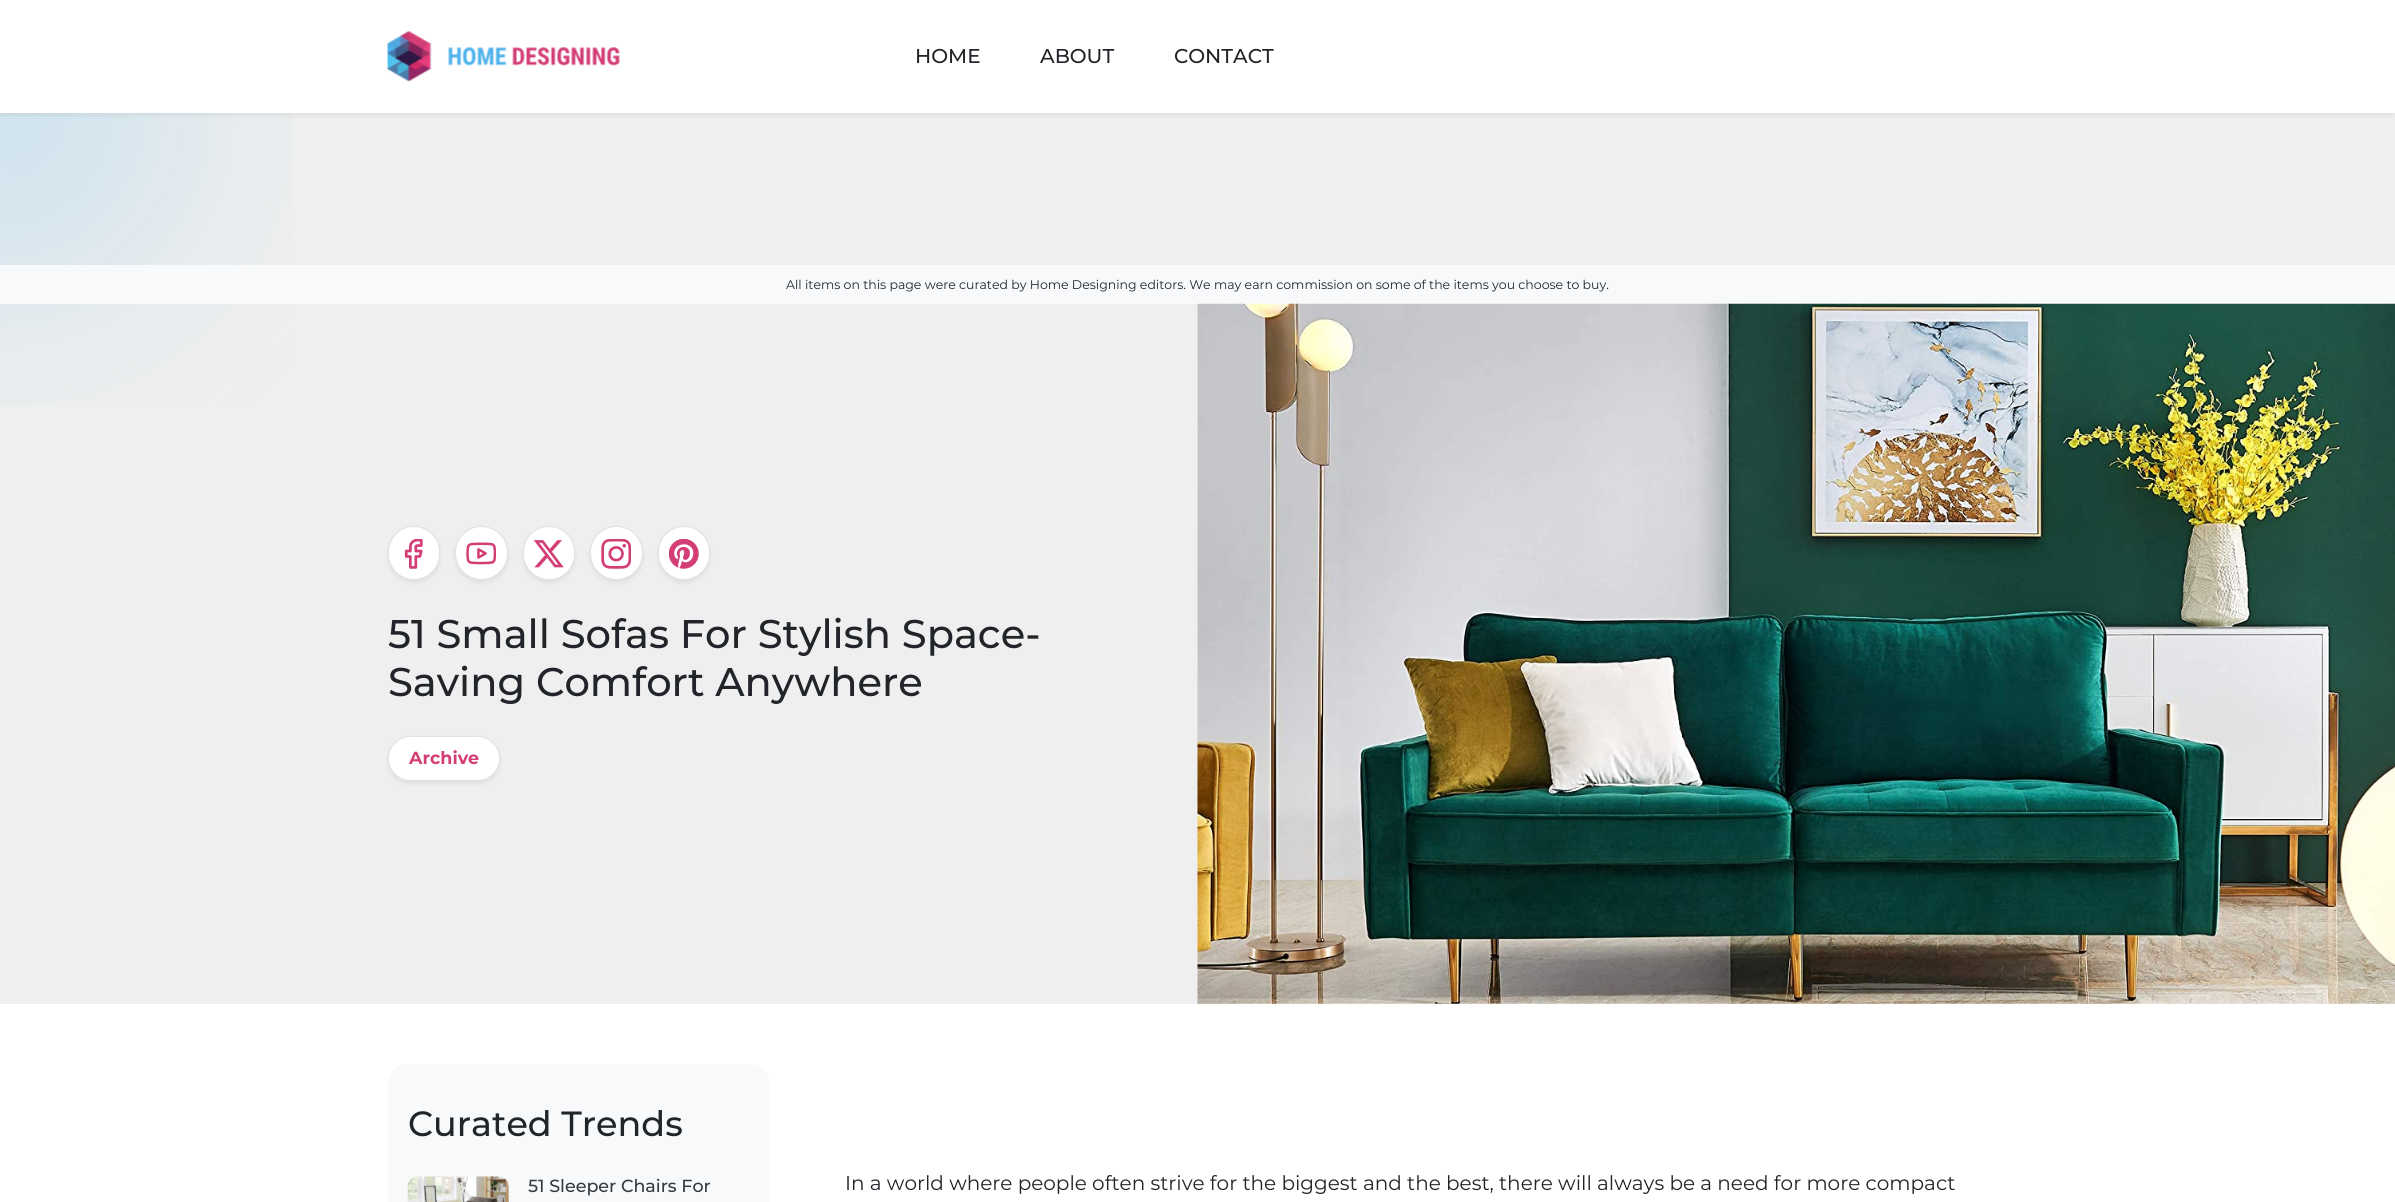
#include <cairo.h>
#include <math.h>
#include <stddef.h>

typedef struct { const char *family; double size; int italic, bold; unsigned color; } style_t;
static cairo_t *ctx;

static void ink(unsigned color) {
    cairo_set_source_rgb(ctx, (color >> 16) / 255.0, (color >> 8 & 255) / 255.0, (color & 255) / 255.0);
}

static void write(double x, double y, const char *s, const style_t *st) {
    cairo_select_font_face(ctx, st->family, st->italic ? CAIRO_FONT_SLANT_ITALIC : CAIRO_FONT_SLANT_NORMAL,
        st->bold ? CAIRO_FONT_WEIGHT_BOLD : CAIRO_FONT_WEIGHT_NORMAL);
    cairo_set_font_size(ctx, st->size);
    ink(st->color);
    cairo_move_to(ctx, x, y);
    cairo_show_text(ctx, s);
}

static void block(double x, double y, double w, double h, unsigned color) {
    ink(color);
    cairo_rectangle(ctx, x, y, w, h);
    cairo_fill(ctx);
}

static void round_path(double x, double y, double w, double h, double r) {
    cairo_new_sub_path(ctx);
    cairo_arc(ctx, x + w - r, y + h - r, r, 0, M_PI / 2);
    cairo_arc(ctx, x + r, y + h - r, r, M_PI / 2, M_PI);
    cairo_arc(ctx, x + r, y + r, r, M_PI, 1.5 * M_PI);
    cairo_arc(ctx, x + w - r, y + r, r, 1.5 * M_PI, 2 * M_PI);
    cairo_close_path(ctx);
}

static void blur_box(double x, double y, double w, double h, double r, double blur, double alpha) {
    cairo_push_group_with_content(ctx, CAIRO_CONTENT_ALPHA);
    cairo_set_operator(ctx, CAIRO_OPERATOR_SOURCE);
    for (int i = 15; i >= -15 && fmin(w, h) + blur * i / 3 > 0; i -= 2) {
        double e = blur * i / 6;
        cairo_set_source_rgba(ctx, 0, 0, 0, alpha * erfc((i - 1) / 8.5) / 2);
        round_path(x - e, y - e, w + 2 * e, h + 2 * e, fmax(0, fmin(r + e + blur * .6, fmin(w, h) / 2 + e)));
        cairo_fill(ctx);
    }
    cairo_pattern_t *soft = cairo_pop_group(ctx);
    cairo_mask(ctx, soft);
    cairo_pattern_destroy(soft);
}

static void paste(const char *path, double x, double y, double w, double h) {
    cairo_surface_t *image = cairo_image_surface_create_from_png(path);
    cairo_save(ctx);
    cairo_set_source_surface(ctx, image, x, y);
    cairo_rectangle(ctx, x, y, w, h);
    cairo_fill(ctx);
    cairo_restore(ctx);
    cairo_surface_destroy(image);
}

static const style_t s1 = {"Montserrat Medium", 20, 0, 0, 0x212529};
static const style_t s2 = {"Montserrat", 12.5, 0, 0, 0x212529};
static const style_t s3 = {"Montserrat Medium", 40, 0, 0, 0x212529};
static const style_t s4 = {"Montserrat", 17.5, 0, 1, 0xd43e76};
static const style_t s5 = {"Montserrat Medium", 35, 0, 0, 0x212529};
static const style_t s6 = {"Montserrat Medium", 17.5, 0, 0, 0x343a40};
static const style_t s7 = {"Montserrat", 20, 0, 0, 0x212529};

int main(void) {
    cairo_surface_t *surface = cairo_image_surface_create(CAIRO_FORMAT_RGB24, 2395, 1202);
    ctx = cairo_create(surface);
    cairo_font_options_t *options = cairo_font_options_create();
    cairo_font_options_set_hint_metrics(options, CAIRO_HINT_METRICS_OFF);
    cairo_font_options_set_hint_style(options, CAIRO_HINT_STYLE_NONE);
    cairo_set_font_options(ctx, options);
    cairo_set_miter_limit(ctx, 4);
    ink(0xffffff);
    cairo_paint(ctx);
    block(0, 113, 2395, 891, 0xefefef);
    paste("pic2.png", 0, 113, 293, 293);
    ink(0x000000);
    blur_box(0, 3, 2395, 112, 0, 2.5, 0.07);
    block(0, 0, 2395, 113, 0xffffff);
    paste("pic1.png", 387, 31, 233, 51);
    write(915, 63, "HOME", &s1);
    write(1040, 63, "ABOUT", &s1);
    write(1174, 63, "CONTACT", &s1);
    block(0, 265, 2395, 39, 0xf8f9fa);
    write(786, 289, "All items on this page were curated by Home Designing editors. We may earn commission on some of the items you choose to buy.", &s2);
    ink(0x000000);
    blur_box(388, 529, 52, 54, 26, 2.5, 0.07);
    ink(0xffffff);
    round_path(388.5, 526.5, 51, 53, 25.5);
    cairo_fill_preserve(ctx);
    ink(0xdee2e6);
    cairo_set_line_width(ctx, 1);
    cairo_stroke(ctx);
    paste("pic3.png", 404, 539, 19, 30);
    ink(0x000000);
    blur_box(455, 529, 53, 54, 26.5, 2.5, 0.07);
    ink(0xffffff);
    round_path(455.5, 526.5, 52, 53, 26);
    cairo_fill_preserve(ctx);
    ink(0xdee2e6);
    cairo_stroke(ctx);
    paste("pic4.png", 466, 542, 30, 23);
    ink(0x000000);
    blur_box(523, 529, 52, 54, 26, 2.5, 0.07);
    ink(0xffffff);
    round_path(523.5, 526.5, 51, 53, 25.5);
    cairo_fill_preserve(ctx);
    ink(0xdee2e6);
    cairo_stroke(ctx);
    paste("pic5.png", 534, 540, 30, 28);
    ink(0x000000);
    blur_box(590, 529, 53, 54, 26.5, 2.5, 0.07);
    ink(0xffffff);
    round_path(590.5, 526.5, 52, 53, 26);
    cairo_fill_preserve(ctx);
    ink(0xdee2e6);
    cairo_stroke(ctx);
    paste("pic6.png", 601, 539, 30, 30);
    ink(0x000000);
    blur_box(658, 529, 52, 54, 26, 2.5, 0.07);
    ink(0xffffff);
    round_path(658.5, 526.5, 51, 53, 25.5);
    cairo_fill_preserve(ctx);
    ink(0xdee2e6);
    cairo_stroke(ctx);
    paste("pic7.png", 669, 539, 30, 30);
    write(388, 648, "51 Small Sofas For Stylish Space-", &s3);
    write(388, 696, "Saving Comfort Anywhere", &s3);
    ink(0x000000);
    blur_box(388, 739, 112, 45, 22.5, 2.5, 0.07);
    ink(0xffffff);
    round_path(388.5, 736.5, 111, 44, 22);
    cairo_fill_preserve(ctx);
    ink(0xdee2e6);
    cairo_stroke(ctx);
    write(409, 764, "Archive", &s4);
    paste("pic8.png", 1197, 303, 1198, 701);
    ink(0xf8f9fa);
    round_path(388, 1064, 382, 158, 20);
    cairo_fill(ctx);
    write(408, 1136, "Curated Trends", &s5);
    paste("pic9.png", 407, 1176, 102, 26);
    write(528, 1192, "51 Sleeper Chairs For", &s6);
    write(845, 1190, "In a world where people often strive for the biggest and the best, there will always be a need for more compact", &s7);
    cairo_surface_write_to_png(surface, "screenshot.png");
    cairo_font_options_destroy(options);
    cairo_destroy(ctx);
    cairo_surface_destroy(surface);
    return 0;
}
